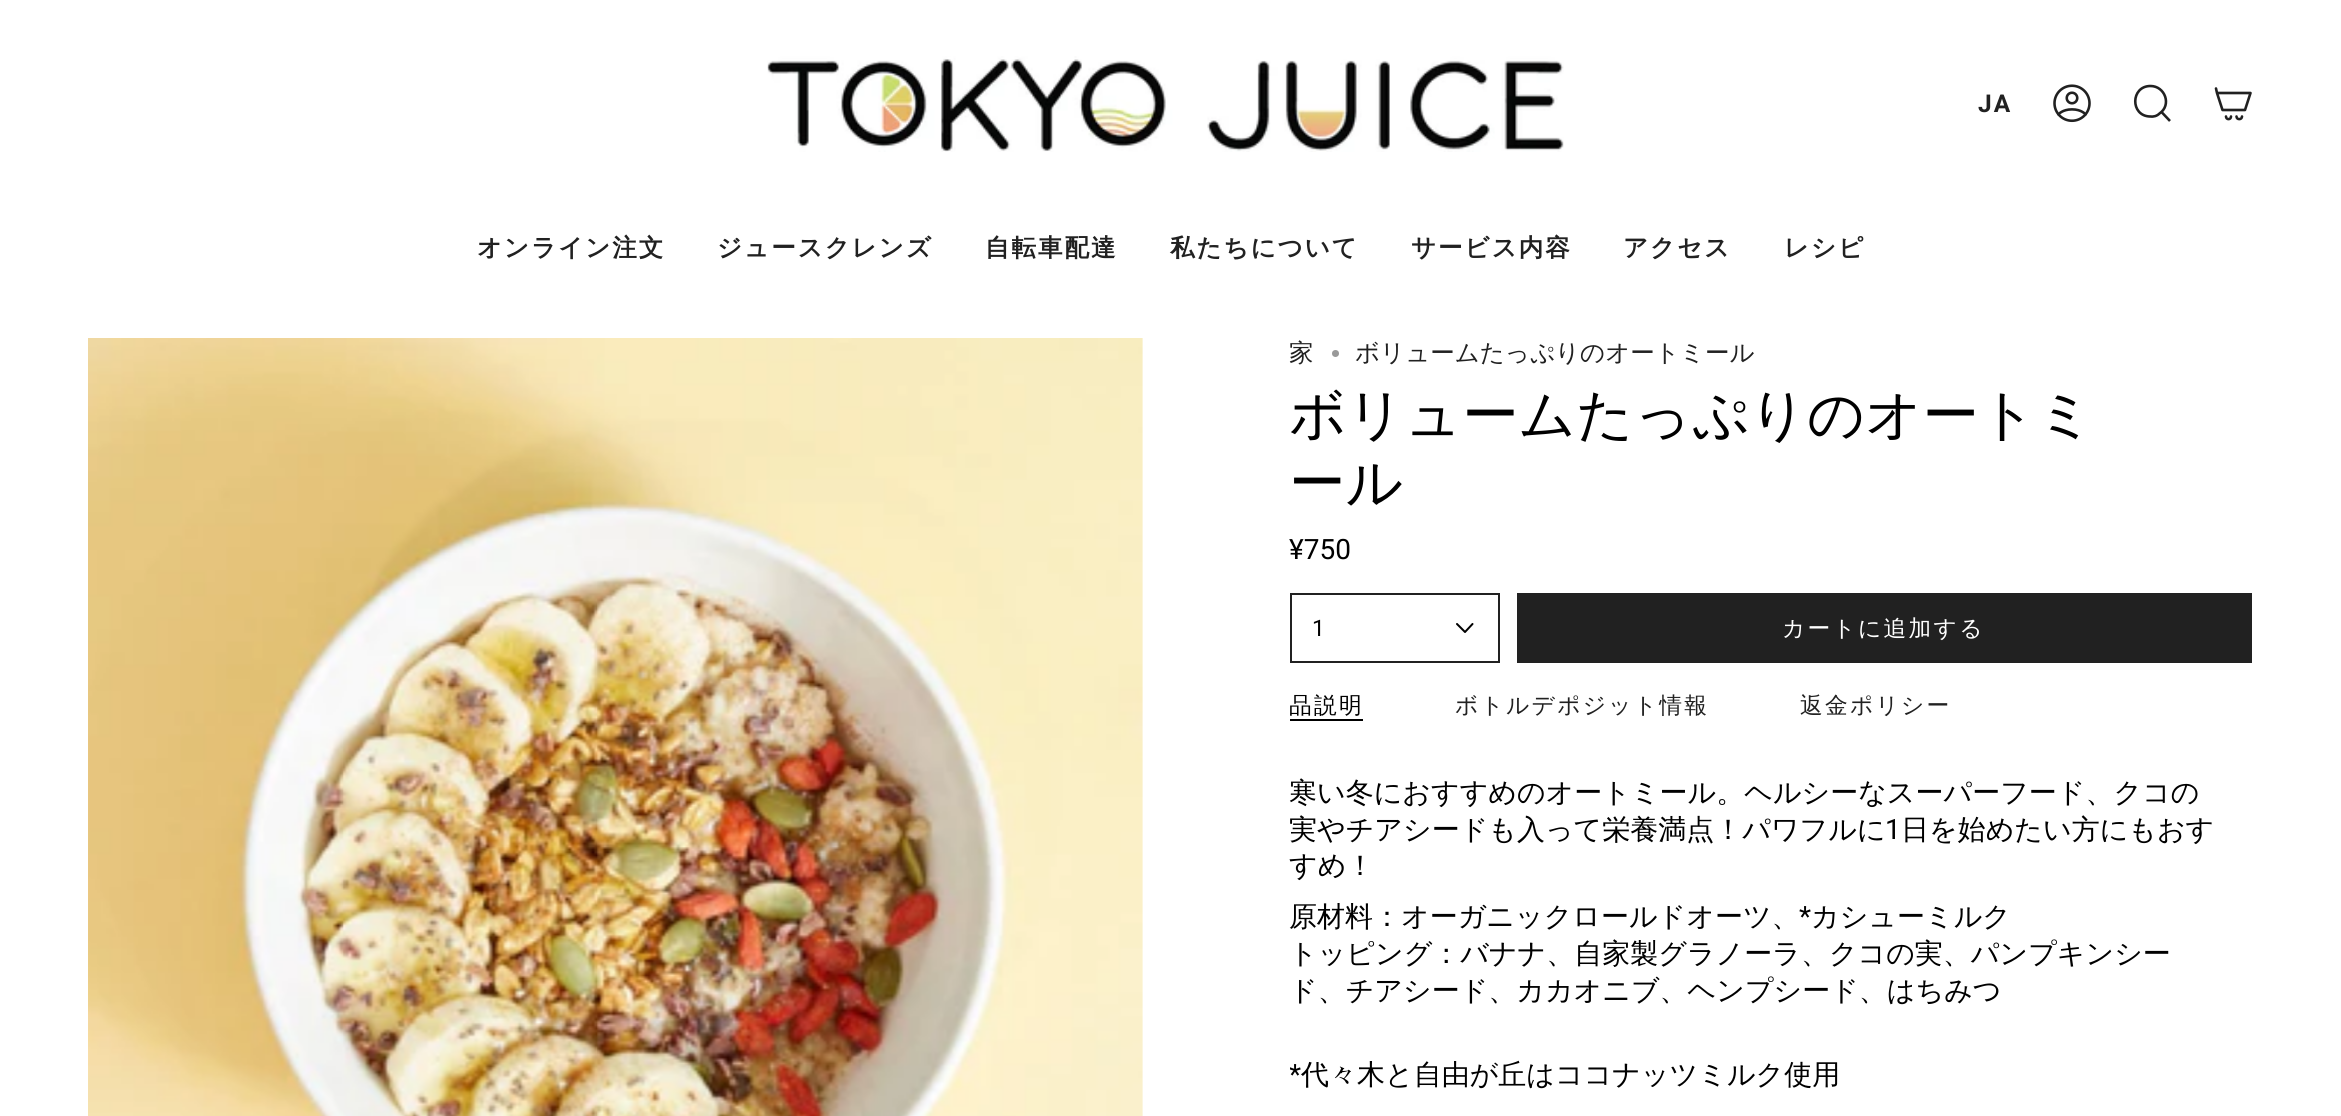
#include <cairo.h>
#include <math.h>
#include <stddef.h>

typedef struct { const char *family; double size; int italic, bold; unsigned color; } style_t;
static cairo_t *ctx;

static void ink(unsigned color) {
    cairo_set_source_rgb(ctx, (color >> 16) / 255.0, (color >> 8 & 255) / 255.0, (color & 255) / 255.0);
}

static void write(double x, double y, const char *s, const style_t *st) {
    cairo_select_font_face(ctx, st->family, st->italic ? CAIRO_FONT_SLANT_ITALIC : CAIRO_FONT_SLANT_NORMAL,
        st->bold ? CAIRO_FONT_WEIGHT_BOLD : CAIRO_FONT_WEIGHT_NORMAL);
    cairo_set_font_size(ctx, st->size);
    ink(st->color);
    cairo_move_to(ctx, x, y);
    cairo_show_text(ctx, s);
}

static void write_spaced(double x, double y, const char *s, double letter, double word) {
    cairo_move_to(ctx, x, y);
    while (*s) {
        char ch[5] = {0};
        int n = 0;
        do ch[n++] = *s++; while ((*s & 0xC0) == 0x80);
        cairo_show_text(ctx, ch);
        cairo_rel_move_to(ctx, letter + word * (*ch == ' '), 0);
    }
}

static void block(double x, double y, double w, double h, unsigned color) {
    ink(color);
    cairo_rectangle(ctx, x, y, w, h);
    cairo_fill(ctx);
}

static void paste(const char *path, double x, double y, double w, double h) {
    cairo_surface_t *image = cairo_image_surface_create_from_png(path);
    cairo_save(ctx);
    cairo_set_source_surface(ctx, image, x, y);
    cairo_rectangle(ctx, x, y, w, h);
    cairo_fill(ctx);
    cairo_restore(ctx);
    cairo_surface_destroy(image);
}

static const style_t s1 = {"WenQuanYi Zen Hei Medium", 24.5, 0, 0, 0x212121};
static const style_t s2 = {"WenQuanYi Zen Hei Medium", 56.4, 0, 0, 0x000000};
static const style_t s3 = {"Roboto", 28, 0, 0, 0x000000};
static const style_t s4 = {"Roboto", 22.75, 0, 0, 0x000000};
static const style_t s5 = {"WenQuanYi Zen Hei Medium", 28, 0, 0, 0x000000};

int main(void) {
    cairo_surface_t *surface = cairo_image_surface_create(CAIRO_FORMAT_RGB24, 2341, 1116);
    ctx = cairo_create(surface);
    cairo_font_options_t *options = cairo_font_options_create();
    cairo_font_options_set_hint_metrics(options, CAIRO_HINT_METRICS_OFF);
    cairo_font_options_set_hint_style(options, CAIRO_HINT_STYLE_NONE);
    cairo_set_font_options(ctx, options);
    cairo_set_miter_limit(ctx, 4);
    ink(0xffffff);
    cairo_paint(ctx);
    paste("pic1.png", 767, 56, 797, 96);
    cairo_select_font_face(ctx, "Roboto", CAIRO_FONT_SLANT_NORMAL, CAIRO_FONT_WEIGHT_BOLD);
    cairo_set_font_size(ctx, 24.5);
    ink(0x212121);
    write_spaced(1978, 112, "JA", 2, 0);
    paste("pic2.png", 2053, 84, 38, 39);
    cairo_new_path(ctx);
    cairo_move_to(ctx, 2150.5, 86);
    cairo_curve_to(ctx, 2165, 86, 2172, 105, 2159.5, 113.5);
    cairo_curve_to(ctx, 2157, 116, 2153.5, 117, 2150, 116.5);
    cairo_curve_to(ctx, 2130, 116, 2130.5, 86, 2150.5, 86);
    cairo_close_path(ctx);
    cairo_move_to(ctx, 2161.5, 112);
    cairo_line_to(ctx, 2170, 121);
    cairo_set_line_width(ctx, 2.6);
    cairo_stroke(ctx);
    cairo_new_path(ctx);
    cairo_move_to(ctx, 2217, 93);
    cairo_line_to(ctx, 2250.5, 93);
    cairo_line_to(ctx, 2245, 110);
    cairo_line_to(ctx, 2222.5, 110);
    cairo_close_path(ctx);
    cairo_move_to(ctx, 2217, 93);
    cairo_line_to(ctx, 2216, 88.5);
    cairo_move_to(ctx, 2231, 116.5);
    cairo_curve_to(ctx, 2231, 120, 2226, 120, 2226, 116.5);
    cairo_move_to(ctx, 2242, 116.5);
    cairo_curve_to(ctx, 2242, 120, 2236.5, 120, 2236.5, 116.5);
    cairo_set_line_cap(ctx, CAIRO_LINE_CAP_ROUND);
    cairo_set_line_join(ctx, CAIRO_LINE_JOIN_ROUND);
    cairo_stroke(ctx);
    cairo_select_font_face(ctx, "WenQuanYi Zen Hei", CAIRO_FONT_SLANT_NORMAL, CAIRO_FONT_WEIGHT_BOLD);
    write_spaced(477, 256, "オンライン注文", 2, 0);
    write_spaced(717, 256, "ジュースクレンズ", 2, 0);
    write_spaced(985, 256, "自転車配達", 2, 0);
    write_spaced(1170, 256, "私たちについて", 2, 0);
    write_spaced(1411, 256, "サービス内容", 2, 0);
    write_spaced(1623, 256, "アクセス", 2, 0);
    write_spaced(1784, 256, "レシピ", 2, 0);
    paste("pic3.png", 88, 338, 1055, 778);
    write(1289, 361, "家", &s1);
    ink(0x999999);
    cairo_new_path(ctx);
    cairo_arc(ctx, 1335.5, 353.5, 3.5, 0, 2 * M_PI);
    cairo_fill(ctx);
    write(1355, 361, "ボリュームたっぷりのオートミール", &s1);
    write(1289, 434, "ボリュームたっぷりのオートミ", &s2);
    write(1289, 502, "ール", &s2);
    write(1289, 559, "¥750", &s3);
    cairo_rectangle(ctx, 1291, 594, 208, 68);
    ink(0x212121);
    cairo_set_line_width(ctx, 2);
    cairo_set_line_cap(ctx, CAIRO_LINE_CAP_BUTT);
    cairo_set_line_join(ctx, CAIRO_LINE_JOIN_MITER);
    cairo_stroke(ctx);
    write(1312, 636, "1", &s4);
    cairo_new_path(ctx);
    cairo_move_to(ctx, 1457, 624);
    cairo_line_to(ctx, 1465, 632);
    cairo_line_to(ctx, 1472.5, 624);
    cairo_set_line_cap(ctx, CAIRO_LINE_CAP_ROUND);
    cairo_set_line_join(ctx, CAIRO_LINE_JOIN_ROUND);
    cairo_stroke(ctx);
    block(1517, 593, 735, 70, 0x212121);
    cairo_select_font_face(ctx, "WenQuanYi Zen Hei Medium", CAIRO_FONT_SLANT_NORMAL, CAIRO_FONT_WEIGHT_NORMAL);
    ink(0xffffff);
    write_spaced(1782, 636, "カートに追加する", 2.25, 0);
    ink(0x000000);
    write_spaced(1289, 713, "品説明", 2.25, 0);
    block(1290, 719, 73, 2, 0x000000);
    ink(0x212121);
    write_spaced(1455, 713, "ボトルデポジット情報", 2.25, 0);
    write_spaced(1800, 713, "返金ポリシー", 2.25, 0);
    write(1289, 802, "寒い冬におすすめのオートミール。ヘルシーなスーパーフード、クコの", &s5);
    write(1289, 839, "実やチアシードも入って栄養満点！パワフルに", &s5);
    write(1885, 839, "1", &s3);
    write(1901, 839, "日を始めたい方にもおす", &s5);
    write(1289, 875, "すめ！", &s5);
    write(1289, 926, "原材料：オーガニックロールドオーツ、", &s5);
    write(1799, 926, "*", &s3);
    write(1811, 926, "カシューミルク", &s5);
    write(1289, 963, "トッピング：バナナ、自家製グラノーラ、クコの実、パンプキンシー", &s5);
    write(1289, 1000, "ド、チアシード、カカオニブ、ヘンプシード、はちみつ", &s5);
    cairo_save(ctx);
    cairo_rectangle(ctx, 1290, 663, 962, 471);
    cairo_clip(ctx);
    write(1289, 1084, "*", &s3);
    cairo_restore(ctx);
    write(1301, 1084, "代々木と自由が丘はココナッツミルク使用", &s5);
    cairo_surface_write_to_png(surface, "screenshot.png");
    cairo_font_options_destroy(options);
    cairo_destroy(ctx);
    cairo_surface_destroy(surface);
    return 0;
}
